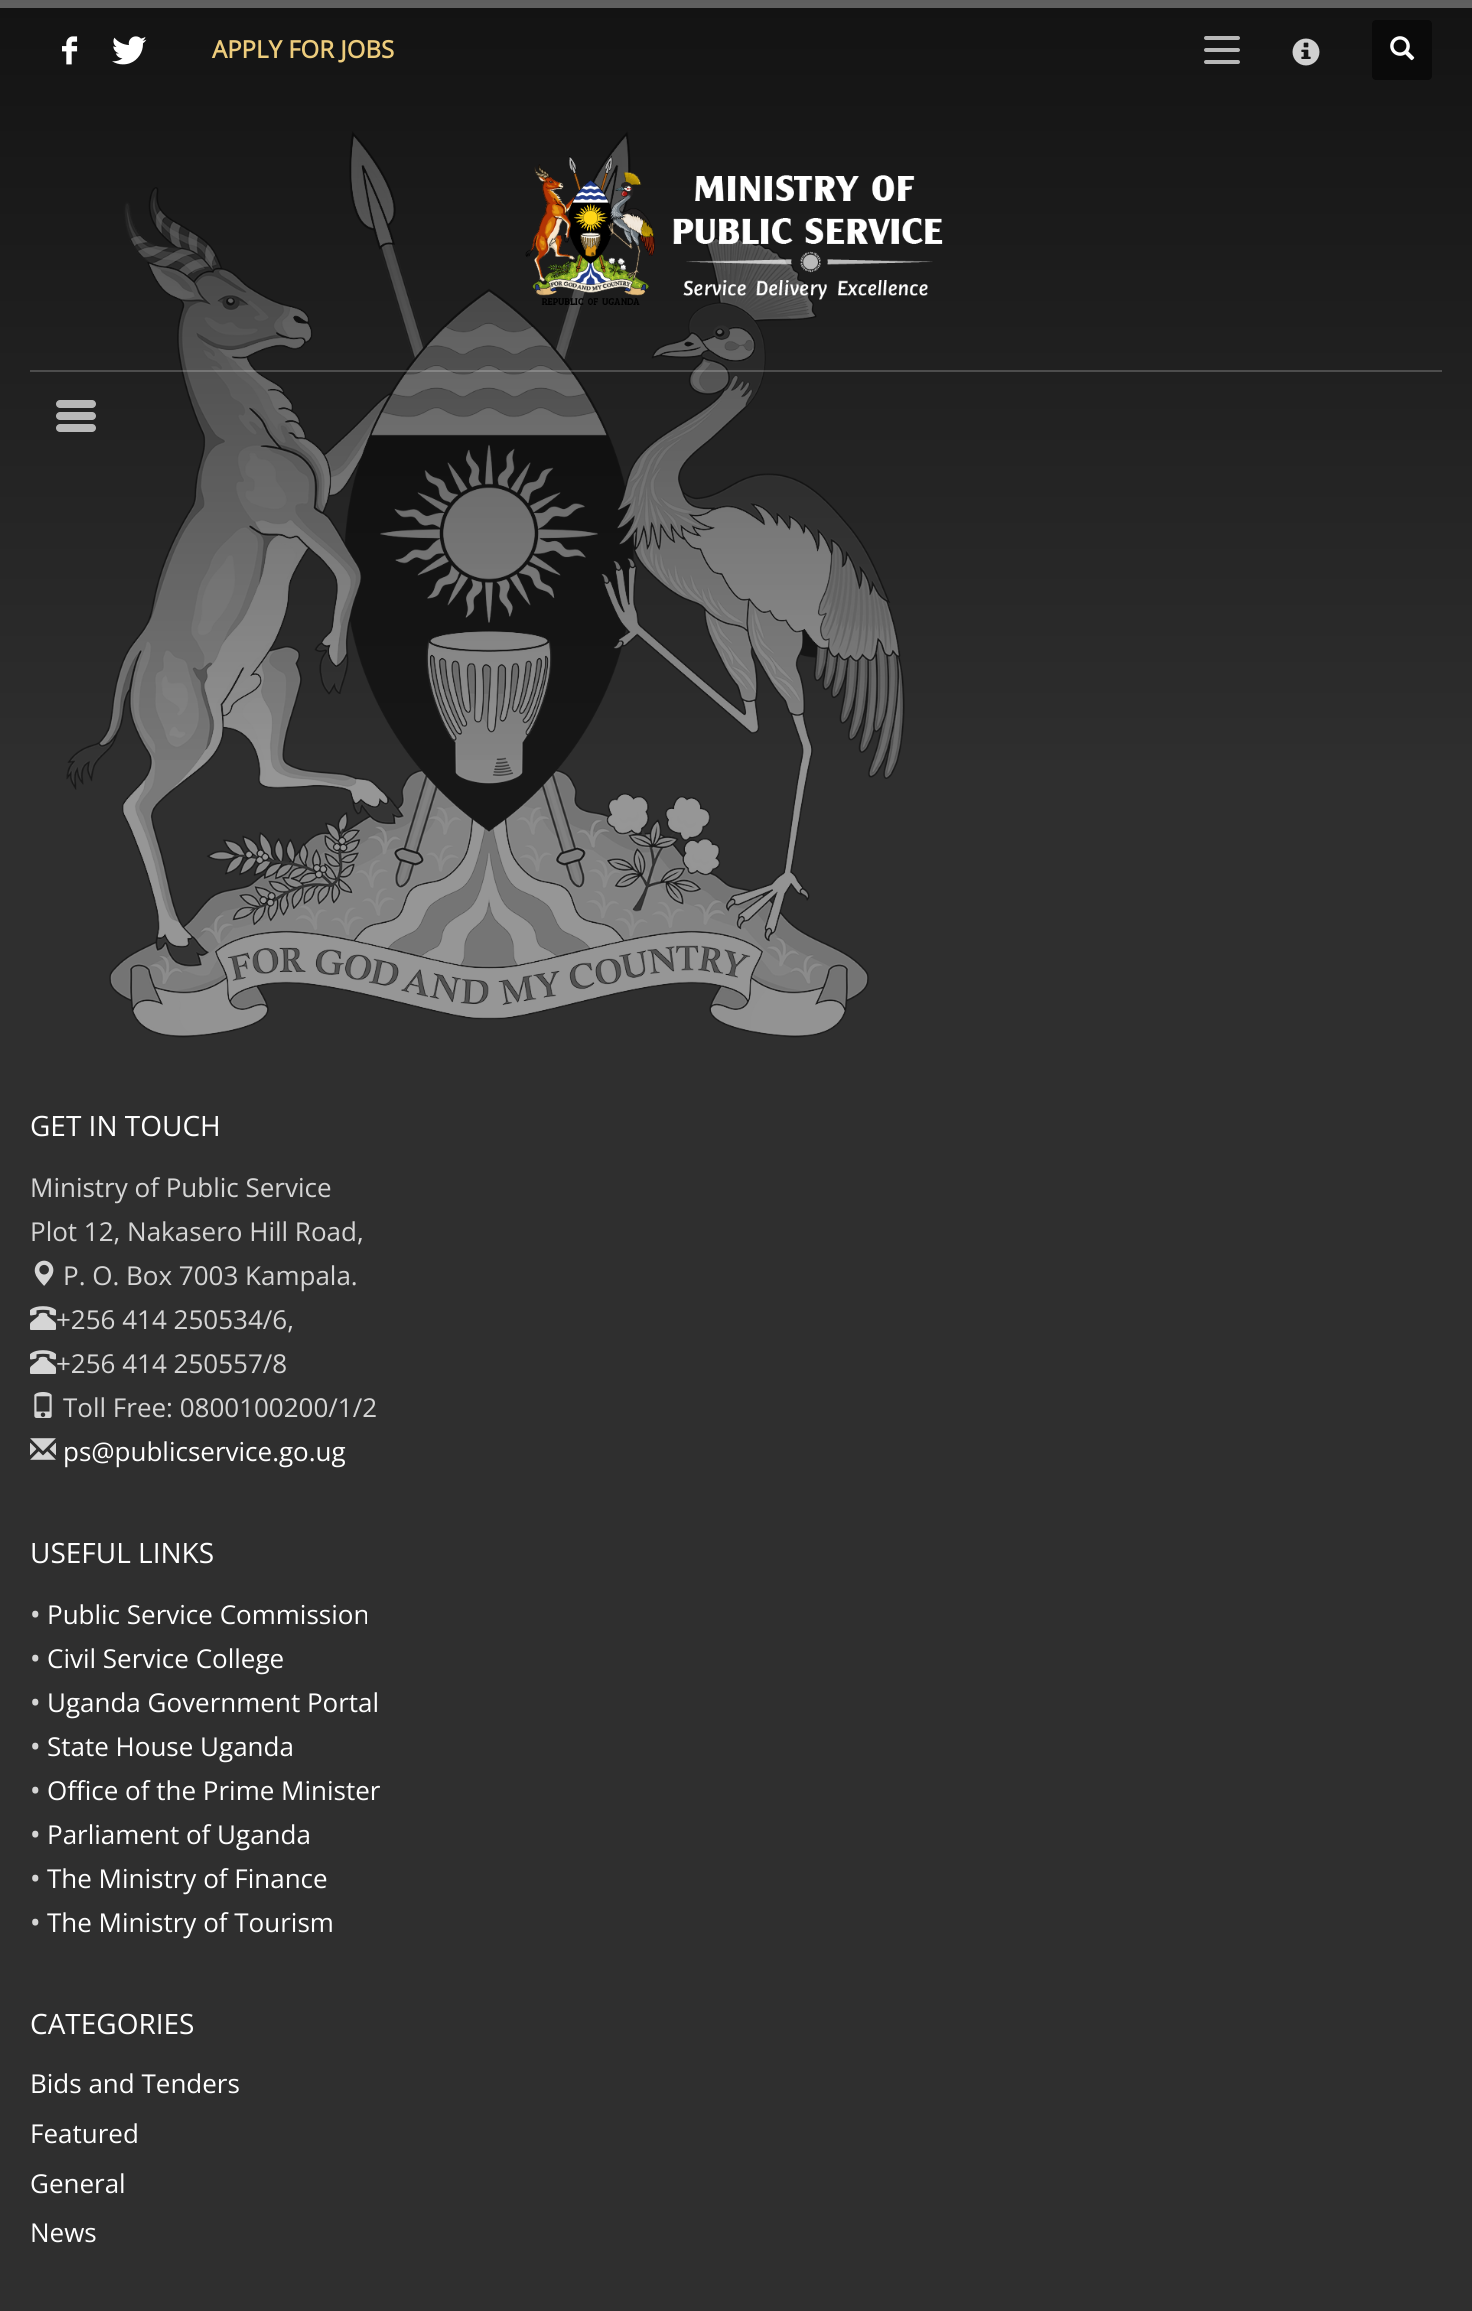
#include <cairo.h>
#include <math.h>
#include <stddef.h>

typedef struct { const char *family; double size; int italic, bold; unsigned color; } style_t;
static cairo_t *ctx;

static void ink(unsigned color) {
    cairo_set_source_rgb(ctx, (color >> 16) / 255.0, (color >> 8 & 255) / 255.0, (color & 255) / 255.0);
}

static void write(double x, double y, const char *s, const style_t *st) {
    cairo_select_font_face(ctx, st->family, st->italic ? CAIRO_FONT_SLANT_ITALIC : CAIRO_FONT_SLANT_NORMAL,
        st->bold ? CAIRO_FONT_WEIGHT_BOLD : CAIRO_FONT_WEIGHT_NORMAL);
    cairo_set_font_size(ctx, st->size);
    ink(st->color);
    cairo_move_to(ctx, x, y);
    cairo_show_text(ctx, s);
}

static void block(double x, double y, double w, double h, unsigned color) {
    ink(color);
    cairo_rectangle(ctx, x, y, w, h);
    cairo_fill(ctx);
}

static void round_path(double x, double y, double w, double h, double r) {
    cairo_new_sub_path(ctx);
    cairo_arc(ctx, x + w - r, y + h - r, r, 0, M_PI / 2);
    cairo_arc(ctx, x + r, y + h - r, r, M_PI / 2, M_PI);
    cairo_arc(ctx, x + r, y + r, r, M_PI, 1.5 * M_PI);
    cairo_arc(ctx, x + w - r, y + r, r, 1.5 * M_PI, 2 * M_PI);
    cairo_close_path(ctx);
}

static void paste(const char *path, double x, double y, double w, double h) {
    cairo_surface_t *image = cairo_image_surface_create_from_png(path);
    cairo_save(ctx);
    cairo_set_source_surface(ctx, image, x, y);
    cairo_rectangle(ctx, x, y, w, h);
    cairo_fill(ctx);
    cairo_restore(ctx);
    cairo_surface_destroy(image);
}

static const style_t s1 = {"Open Sans", 24, 0, 1, 0xedcc7c};
static const style_t s2 = {"Open Sans", 28, 0, 0, 0xffffff};
static const style_t s3 = {"Open Sans", 26, 0, 0, 0xd5d5d5};
static const style_t s4 = {"Open Sans", 26, 0, 0, 0xffffff};
static const style_t s5 = {"Open Sans", 26, 0, 1, 0xd5d5d5};

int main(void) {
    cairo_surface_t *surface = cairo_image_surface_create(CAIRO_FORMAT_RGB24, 1472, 2311);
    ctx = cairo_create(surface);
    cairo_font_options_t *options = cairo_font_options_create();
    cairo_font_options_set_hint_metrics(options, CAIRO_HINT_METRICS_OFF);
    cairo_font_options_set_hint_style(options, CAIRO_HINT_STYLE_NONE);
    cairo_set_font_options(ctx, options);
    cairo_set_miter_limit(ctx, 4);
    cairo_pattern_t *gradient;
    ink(0x2f2f2f);
    cairo_paint(ctx);
    block(0, 0, 1472, 8, 0xffffff);
    paste("pic6.png", 66, 131, 839, 907);
    gradient = cairo_pattern_create_linear(736, 0, 736, 788);
    cairo_pattern_add_color_stop_rgba(gradient, 0, 0, 0, 0, 0.6);
    cairo_pattern_add_color_stop_rgba(gradient, 1, 0, 0, 0, 0);
    cairo_set_source(ctx, gradient);
    cairo_pattern_destroy(gradient);
    cairo_rectangle(ctx, 0, 0, 1472, 760);
    cairo_fill(ctx);
    cairo_set_source_rgba(ctx, 0, 0, 0, 0.07);
    cairo_rectangle(ctx, 0, 0, 1472, 8);
    cairo_fill(ctx);
    paste("pic1.png", 62, 36, 16, 29);
    paste("pic2.png", 112, 36, 35, 29);
    write(212, 58, "APPLY FOR JOBS", &s1);
    ink(0xb8b8b8);
    round_path(1204, 60, 36, 4, 2);
    cairo_fill(ctx);
    round_path(1204, 48, 36, 4, 2);
    cairo_fill(ctx);
    round_path(1204, 36, 36, 4, 2);
    cairo_fill(ctx);
    paste("pic3.png", 1292, 38, 28, 28);
    ink(0x0a0a0a);
    round_path(1372, 20, 60, 60, 4);
    cairo_fill(ctx);
    paste("pic4.png", 1390, 36, 25, 25);
    paste("pic5.png", 525, 155, 418, 150);
    cairo_set_source_rgba(ctx, 1, 1, 1, 0.2);
    cairo_rectangle(ctx, 30, 370, 1412, 2);
    cairo_fill(ctx);
    ink(0xb8b8b8);
    round_path(56, 400, 40, 8, 4);
    cairo_fill(ctx);
    round_path(56, 412, 40, 8, 4);
    cairo_fill(ctx);
    round_path(56, 424, 40, 8, 4);
    cairo_fill(ctx);
    write(30, 1136, "GET IN TOUCH", &s2);
    write(30, 1197, "Ministry of Public Service", &s3);
    write(30, 1241, "Plot 12, Nakasero Hill Road,", &s3);
    paste("pic7.png", 34, 1260, 20, 26);
    write(63, 1285, "P. O. Box 7003 Kampala.", &s3);
    paste("pic8.png", 30, 1306, 26, 24);
    write(56, 1329, "+256 414 250534/6,", &s3);
    paste("pic8.png", 30, 1350, 26, 24);
    write(56, 1373, "+256 414 250557/8", &s3);
    paste("pic9.png", 34, 1392, 18, 26);
    write(63, 1417, "Toll Free: 0800100200/1/2", &s3);
    paste("pic10.png", 30, 1438, 26, 22);
    write(63, 1461, "ps@publicservice.go.ug", &s4);
    write(30, 1563, "USEFUL LINKS", &s2);
    write(30, 1624, "•", &s5);
    write(47, 1624, "Public Service Commission", &s4);
    write(30, 1668, "•", &s5);
    write(47, 1668, "Civil Service College", &s4);
    write(30, 1712, "•", &s5);
    write(47, 1712, "Uganda Government Portal", &s4);
    write(30, 1756, "•", &s5);
    write(47, 1756, "State House Uganda", &s4);
    write(30, 1800, "•", &s5);
    write(47, 1800, "Office of the Prime Minister", &s4);
    write(30, 1844, "•", &s5);
    write(47, 1844, "Parliament of Uganda", &s4);
    write(30, 1888, "•", &s5);
    write(47, 1888, "The Ministry of Finance", &s4);
    write(30, 1932, "•", &s5);
    write(47, 1932, "The Ministry of Tourism", &s4);
    write(30, 2034, "CATEGORIES", &s2);
    write(30, 2093, "Bids and Tenders", &s4);
    write(30, 2143, "Featured", &s4);
    write(30, 2193, "General", &s4);
    write(30, 2242, "News", &s4);
    cairo_surface_write_to_png(surface, "screenshot.png");
    cairo_font_options_destroy(options);
    cairo_destroy(ctx);
    cairo_surface_destroy(surface);
    return 0;
}
